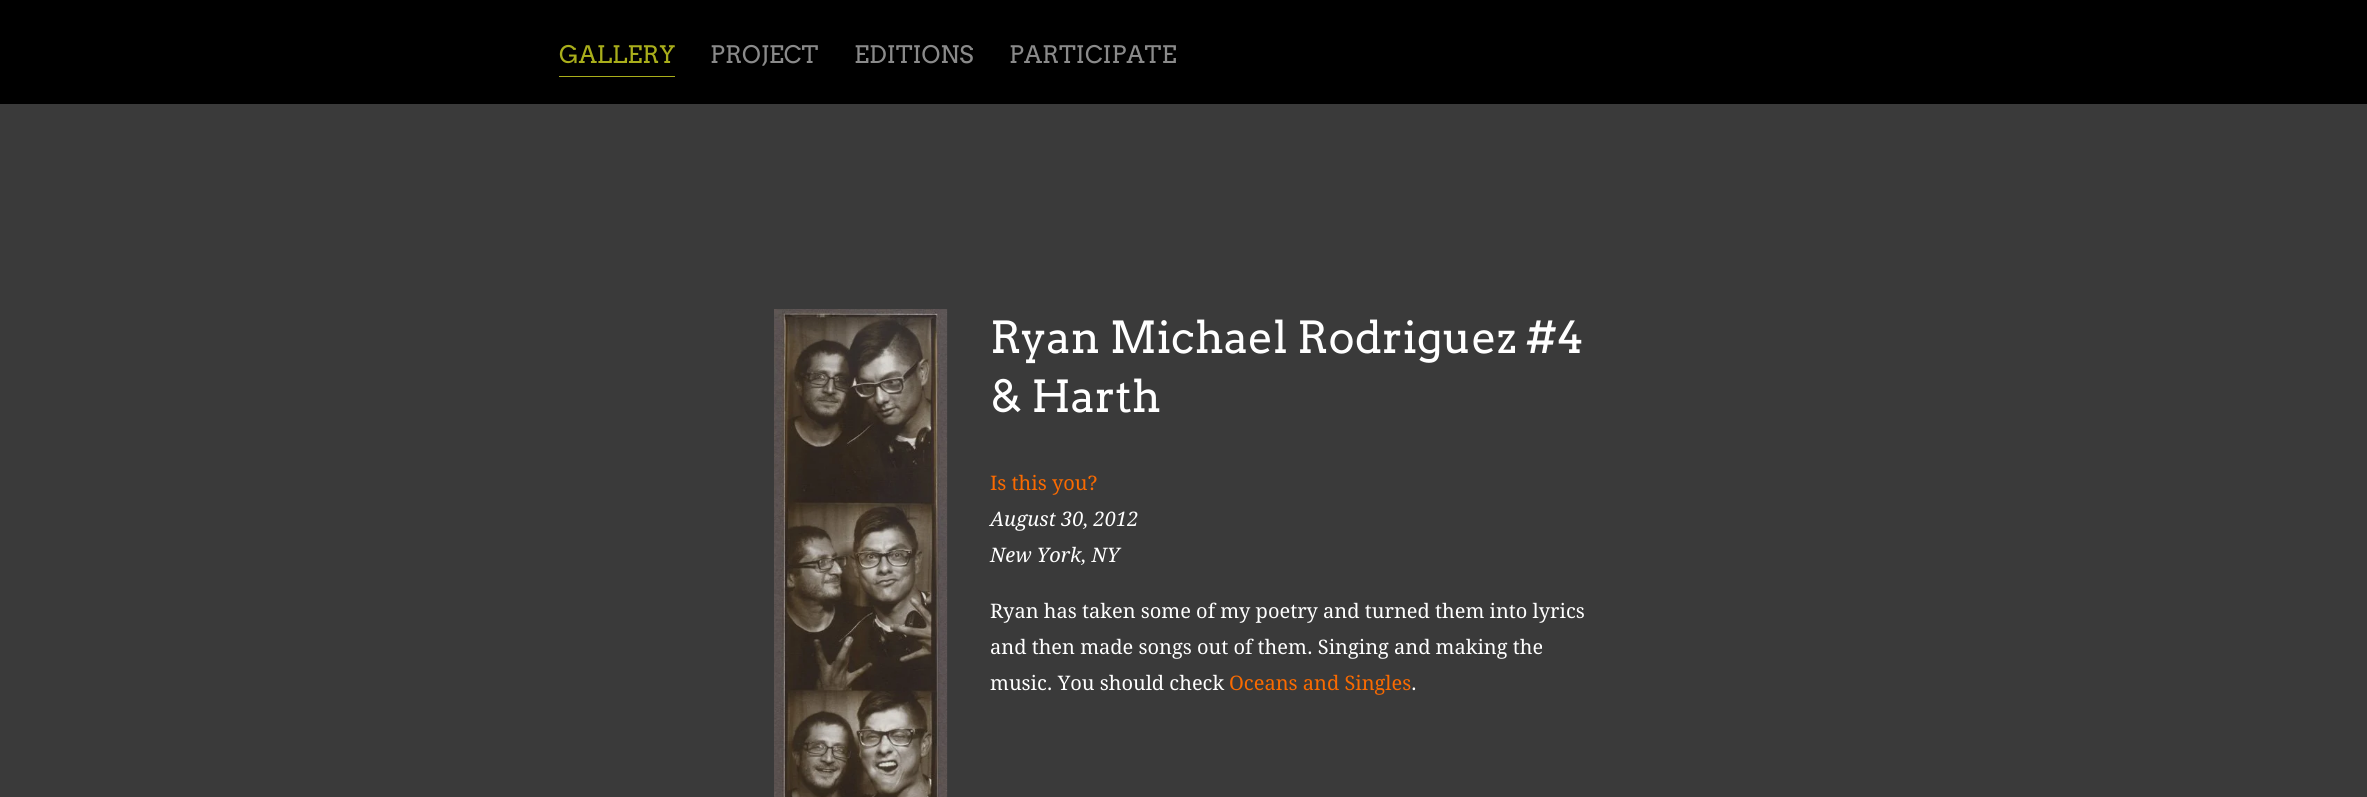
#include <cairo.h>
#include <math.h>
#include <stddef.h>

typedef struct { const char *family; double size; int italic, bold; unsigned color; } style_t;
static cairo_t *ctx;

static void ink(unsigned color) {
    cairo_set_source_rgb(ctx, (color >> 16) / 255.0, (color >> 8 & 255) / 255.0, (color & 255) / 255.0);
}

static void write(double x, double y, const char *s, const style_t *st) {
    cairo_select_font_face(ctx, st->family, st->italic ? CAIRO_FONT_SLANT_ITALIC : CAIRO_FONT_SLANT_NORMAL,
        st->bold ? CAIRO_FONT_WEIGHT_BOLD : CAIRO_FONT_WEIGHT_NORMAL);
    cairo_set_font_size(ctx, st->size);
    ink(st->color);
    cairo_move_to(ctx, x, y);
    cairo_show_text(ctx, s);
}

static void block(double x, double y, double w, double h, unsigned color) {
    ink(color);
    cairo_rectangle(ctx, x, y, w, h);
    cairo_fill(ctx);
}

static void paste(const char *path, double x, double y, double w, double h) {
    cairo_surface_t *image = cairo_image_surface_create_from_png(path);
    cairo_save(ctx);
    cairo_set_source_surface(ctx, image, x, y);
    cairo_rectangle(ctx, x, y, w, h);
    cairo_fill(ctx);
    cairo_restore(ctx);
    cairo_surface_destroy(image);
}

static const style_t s1 = {"Arvo", 24, 0, 0, 0xa9ae1b};
static const style_t s2 = {"Arvo", 24, 0, 0, 0x8a8a8a};
static const style_t s3 = {"Arvo", 44, 0, 0, 0xffffff};
static const style_t s4 = {"Droid Serif", 20, 0, 0, 0xfa6a00};
static const style_t s5 = {"Droid Serif", 20, 1, 0, 0xffffff};
static const style_t s6 = {"Droid Serif", 20, 0, 0, 0xffffff};

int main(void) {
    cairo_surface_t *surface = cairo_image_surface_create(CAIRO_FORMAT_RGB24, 2367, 797);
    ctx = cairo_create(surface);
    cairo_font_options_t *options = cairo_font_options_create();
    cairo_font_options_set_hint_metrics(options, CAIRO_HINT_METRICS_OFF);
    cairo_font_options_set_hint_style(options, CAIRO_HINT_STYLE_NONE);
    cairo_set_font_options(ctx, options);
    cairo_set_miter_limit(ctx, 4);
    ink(0x3a3a3a);
    cairo_paint(ctx);
    block(0, 0, 2367, 104, 0x000000);
    block(559, 76, 116, 1, 0xa9ae1b);
    write(559, 63, "GALLERY", &s1);
    write(710, 63, "PROJECT", &s2);
    write(854, 63, "EDITIONS", &s2);
    write(1009, 63, "PARTICIPATE", &s2);
    paste("pic1.png", 774, 309, 174, 488);
    write(990, 353, "Ryan Michael Rodriguez #4", &s3);
    write(990, 412, "& Harth", &s3);
    write(990, 490, "Is this you?", &s4);
    write(990, 526, "August 30, 2012", &s5);
    write(990, 562, "New York, NY", &s5);
    write(990, 618, "Ryan has taken some of my poetry and turned them into lyrics", &s6);
    write(990, 654, "and then made songs out of them. Singing and making the", &s6);
    write(990, 690, "music. You should check", &s6);
    write(1229, 690, "Oceans and Singles", &s4);
    write(1411, 690, ".", &s6);
    cairo_surface_write_to_png(surface, "screenshot.png");
    cairo_font_options_destroy(options);
    cairo_destroy(ctx);
    cairo_surface_destroy(surface);
    return 0;
}
